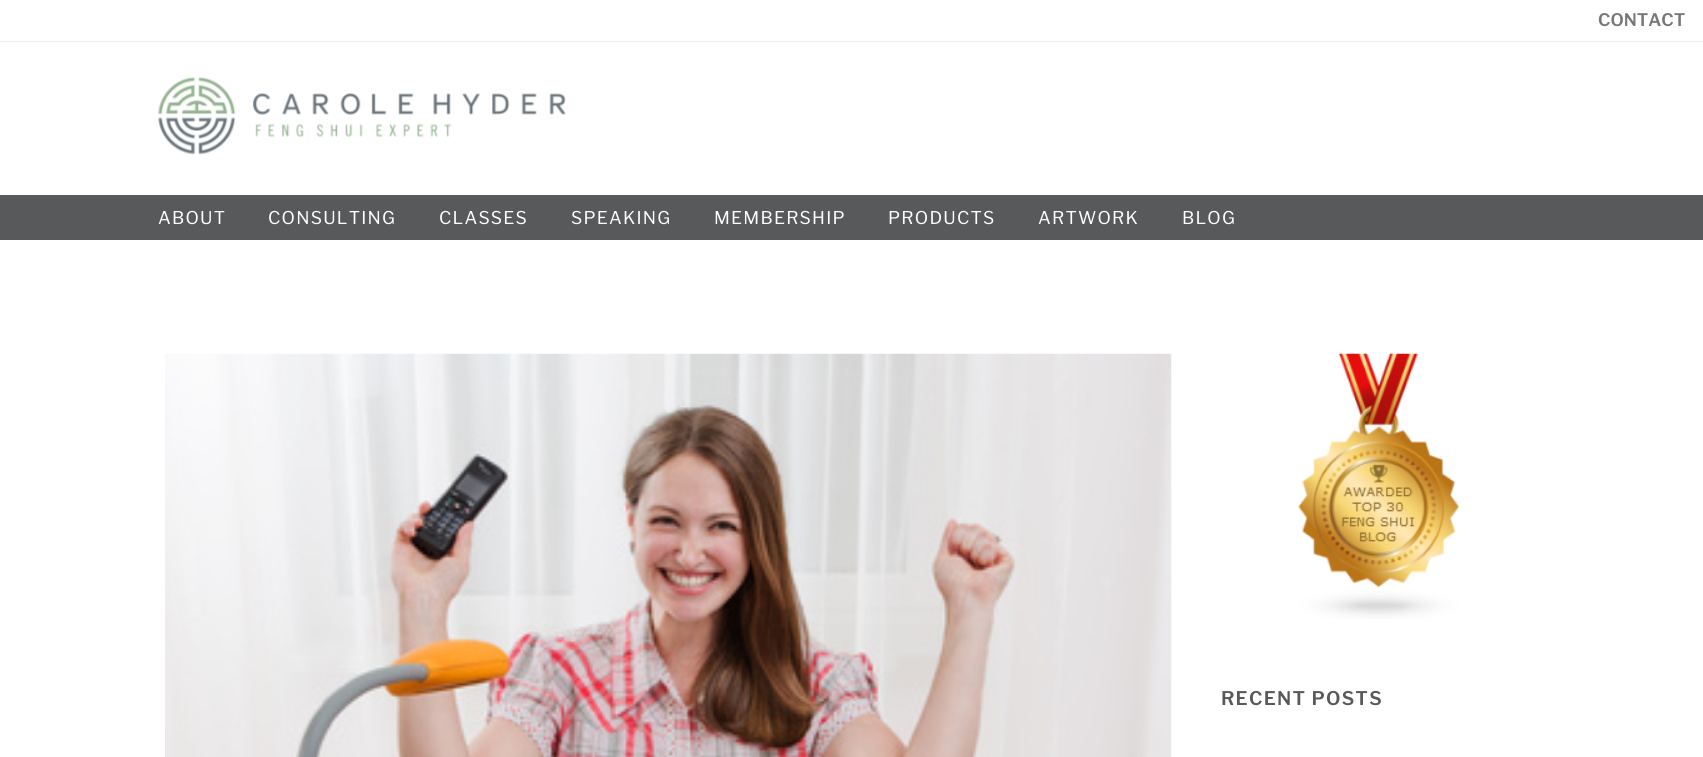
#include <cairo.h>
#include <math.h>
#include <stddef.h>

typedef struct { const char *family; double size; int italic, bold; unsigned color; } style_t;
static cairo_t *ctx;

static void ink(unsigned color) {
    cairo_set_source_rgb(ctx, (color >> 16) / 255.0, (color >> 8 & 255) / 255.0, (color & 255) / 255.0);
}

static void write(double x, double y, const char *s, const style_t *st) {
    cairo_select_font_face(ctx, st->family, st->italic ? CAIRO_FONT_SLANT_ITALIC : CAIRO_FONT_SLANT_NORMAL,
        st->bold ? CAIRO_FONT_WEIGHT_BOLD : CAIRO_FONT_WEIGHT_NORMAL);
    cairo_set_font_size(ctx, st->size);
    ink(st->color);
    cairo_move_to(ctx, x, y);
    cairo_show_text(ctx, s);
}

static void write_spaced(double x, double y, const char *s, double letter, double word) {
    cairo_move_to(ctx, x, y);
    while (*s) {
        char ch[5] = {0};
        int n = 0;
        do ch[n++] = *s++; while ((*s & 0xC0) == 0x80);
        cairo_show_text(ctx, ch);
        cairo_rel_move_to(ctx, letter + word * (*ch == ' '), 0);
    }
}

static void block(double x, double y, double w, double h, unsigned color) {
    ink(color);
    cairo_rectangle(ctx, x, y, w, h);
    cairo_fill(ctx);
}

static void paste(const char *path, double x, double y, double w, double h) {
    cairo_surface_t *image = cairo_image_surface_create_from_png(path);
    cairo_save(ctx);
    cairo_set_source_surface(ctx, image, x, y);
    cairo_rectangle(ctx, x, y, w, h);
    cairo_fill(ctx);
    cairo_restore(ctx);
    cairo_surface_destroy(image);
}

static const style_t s1 = {"Libre Franklin SemiBold", 17.25, 0, 0, 0x777777};

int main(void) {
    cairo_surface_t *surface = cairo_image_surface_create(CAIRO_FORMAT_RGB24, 1703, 757);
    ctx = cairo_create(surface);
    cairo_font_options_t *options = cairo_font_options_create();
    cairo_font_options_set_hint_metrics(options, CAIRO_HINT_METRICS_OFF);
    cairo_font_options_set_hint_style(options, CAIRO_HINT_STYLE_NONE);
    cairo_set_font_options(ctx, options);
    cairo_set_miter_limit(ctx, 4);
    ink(0xffffff);
    cairo_paint(ctx);
    block(0, 41, 1703, 1, 0xefefef);
    write(1598, 26, "CONTACT", &s1);
    paste("pic1.png", 158, 77, 408, 78);
    block(0, 195, 1703, 45, 0x58595b);
    cairo_select_font_face(ctx, "Libre Franklin", CAIRO_FONT_SLANT_NORMAL, CAIRO_FONT_WEIGHT_NORMAL);
    cairo_set_font_size(ctx, 17.5);
    ink(0xffffff);
    write_spaced(158, 224, "ABOUT", 1.25, 0);
    write_spaced(268, 224, "CONSULTING", 1.25, 0);
    write_spaced(439, 224, "CLASSES", 1.25, 0);
    write_spaced(571, 224, "SPEAKING", 1.25, 0);
    write_spaced(714, 224, "MEMBERSHIP", 1.25, 0);
    write_spaced(888, 224, "PRODUCTS", 1.25, 0);
    write_spaced(1038, 224, "ARTWORK", 1.25, 0);
    write_spaced(1182, 224, "BLOG", 1.25, 0);
    paste("pic2.png", 165, 353, 1007, 404);
    paste("pic3.png", 1298, 353, 161, 266);
    cairo_select_font_face(ctx, "Libre Franklin SemiBold", CAIRO_FONT_SLANT_NORMAL, CAIRO_FONT_WEIGHT_NORMAL);
    cairo_set_font_size(ctx, 18.75);
    ink(0x58595b);
    write_spaced(1221, 705, "RECENT POSTS", 1.25, 0);
    cairo_surface_write_to_png(surface, "screenshot.png");
    cairo_font_options_destroy(options);
    cairo_destroy(ctx);
    cairo_surface_destroy(surface);
    return 0;
}
